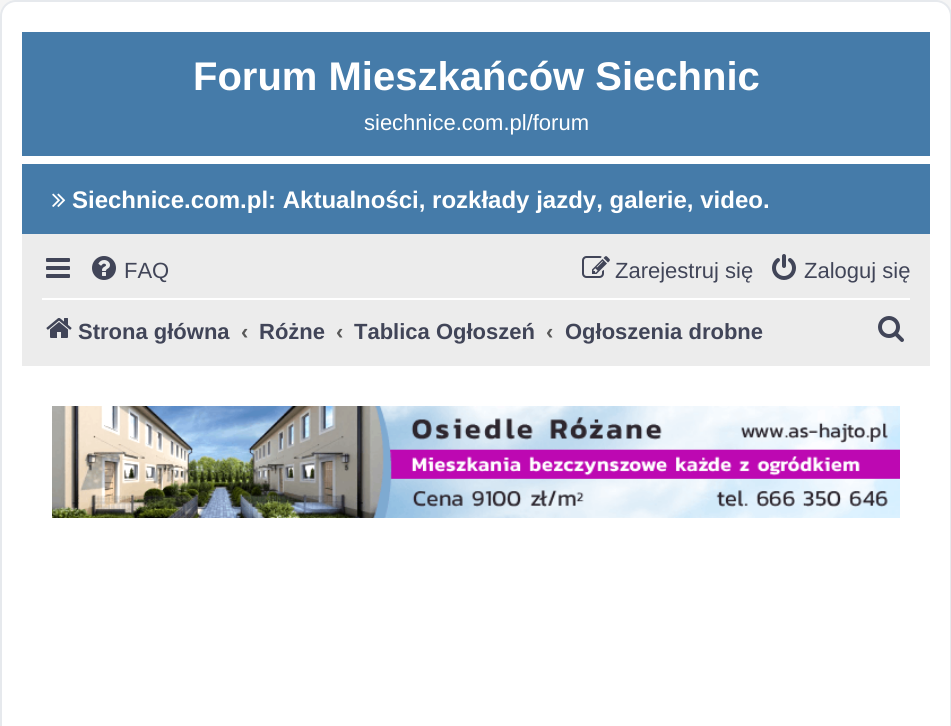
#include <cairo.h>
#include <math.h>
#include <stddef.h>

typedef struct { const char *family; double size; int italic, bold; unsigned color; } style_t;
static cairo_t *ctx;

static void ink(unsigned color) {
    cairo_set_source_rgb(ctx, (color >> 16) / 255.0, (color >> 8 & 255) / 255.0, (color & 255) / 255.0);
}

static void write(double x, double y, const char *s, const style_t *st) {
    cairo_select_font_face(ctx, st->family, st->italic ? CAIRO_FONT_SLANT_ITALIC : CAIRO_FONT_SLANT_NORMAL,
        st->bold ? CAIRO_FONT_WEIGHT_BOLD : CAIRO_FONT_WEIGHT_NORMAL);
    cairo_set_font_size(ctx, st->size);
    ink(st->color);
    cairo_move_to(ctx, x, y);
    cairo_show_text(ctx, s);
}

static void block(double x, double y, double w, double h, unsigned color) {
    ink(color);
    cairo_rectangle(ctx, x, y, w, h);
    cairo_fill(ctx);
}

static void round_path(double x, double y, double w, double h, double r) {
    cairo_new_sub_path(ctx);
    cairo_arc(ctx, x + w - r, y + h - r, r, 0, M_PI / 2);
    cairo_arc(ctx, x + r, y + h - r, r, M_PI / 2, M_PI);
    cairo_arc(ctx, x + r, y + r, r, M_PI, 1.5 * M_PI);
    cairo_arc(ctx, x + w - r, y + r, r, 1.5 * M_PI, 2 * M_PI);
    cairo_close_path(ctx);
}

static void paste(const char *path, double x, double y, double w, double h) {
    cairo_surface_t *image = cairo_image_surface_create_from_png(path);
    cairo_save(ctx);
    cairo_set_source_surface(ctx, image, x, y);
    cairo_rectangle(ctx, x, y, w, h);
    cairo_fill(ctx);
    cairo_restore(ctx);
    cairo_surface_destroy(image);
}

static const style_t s1 = {"Liberation Sans", 40, 0, 1, 0xffffff};
static const style_t s2 = {"Liberation Sans", 22, 0, 0, 0xffffff};
static const style_t s3 = {"Liberation Sans", 24, 0, 1, 0xffffff};
static const style_t s4 = {"Liberation Sans", 22, 0, 0, 0x414558};
static const style_t s5 = {"Liberation Sans", 22, 0, 1, 0x414558};
static const style_t s6 = {"Liberation Sans", 22, 0, 1, 0x595959};

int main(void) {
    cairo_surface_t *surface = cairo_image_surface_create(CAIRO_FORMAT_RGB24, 951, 726);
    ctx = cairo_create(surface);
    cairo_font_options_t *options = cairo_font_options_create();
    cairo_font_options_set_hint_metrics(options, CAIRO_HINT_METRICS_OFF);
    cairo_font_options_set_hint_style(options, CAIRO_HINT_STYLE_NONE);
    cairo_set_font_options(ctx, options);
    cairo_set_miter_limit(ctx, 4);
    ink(0xf5f5f5);
    cairo_paint(ctx);
    ink(0xffffff);
    round_path(1, 1, 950, 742, 15);
    cairo_fill_preserve(ctx);
    ink(0xe6e9ed);
    cairo_stroke(ctx);
    block(22, 32, 908, 124, 0x457ba9);
    write(193, 90, "Forum Mieszkańców Siechnic", &s1);
    write(364, 130, "siechnice.com.pl/forum", &s2);
    block(22, 164, 908, 70, 0x457ba9);
    paste("pic1.png", 52, 193, 14, 14);
    write(72, 208, "Siechnice.com.pl: Aktualności, rozkłady jazdy, galerie, video.", &s3);
    block(22, 234, 908, 132, 0xececec);
    paste("pic2.png", 46, 258, 24, 20);
    paste("pic3.png", 92, 256, 24, 24);
    write(124, 278, "FAQ", &s4);
    paste("pic4.png", 582, 256, 28, 22);
    write(615, 278, "Zarejestruj się", &s4);
    paste("pic5.png", 772, 254, 24, 26);
    write(804, 278, "Zaloguj się", &s4);
    block(42, 298, 868, 2, 0xffffff);
    paste("pic6.png", 46, 318, 26, 20);
    write(78, 339, "Strona główna", &s5);
    write(241, 339, "‹", &s6);
    write(259, 339, "Różne", &s5);
    write(336, 339, "‹", &s6);
    write(354, 339, "Tablica Ogłoszeń", &s5);
    write(546, 339, "‹", &s6);
    write(565, 339, "Ogłoszenia drobne", &s5);
    paste("pic7.png", 878, 316, 26, 26);
    paste("pic8.png", 52, 406, 848, 112);
    cairo_surface_write_to_png(surface, "screenshot.png");
    cairo_font_options_destroy(options);
    cairo_destroy(ctx);
    cairo_surface_destroy(surface);
    return 0;
}
